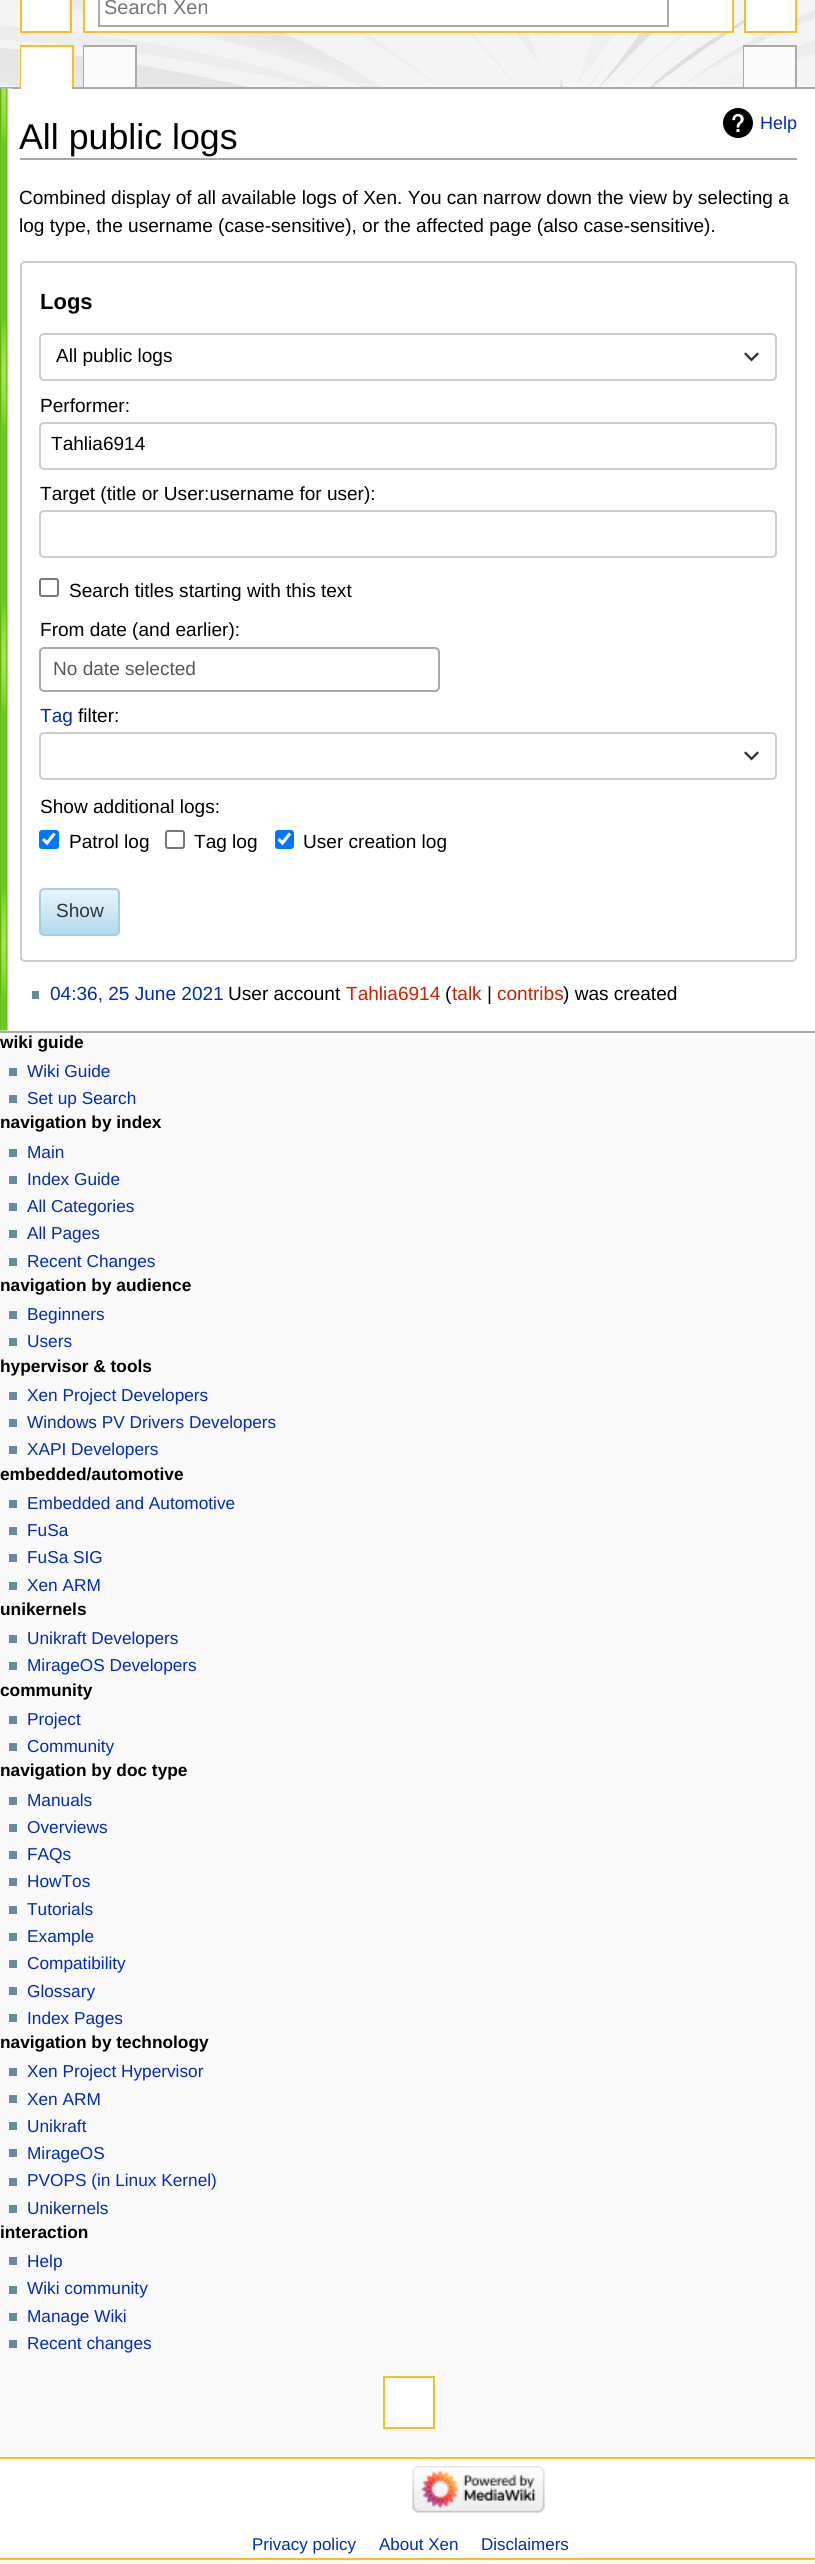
#include <cairo.h>
#include <math.h>
#include <stddef.h>

typedef struct { const char *family; double size; int italic, bold; unsigned color; } style_t;
static cairo_t *ctx;

static void ink(unsigned color) {
    cairo_set_source_rgb(ctx, (color >> 16) / 255.0, (color >> 8 & 255) / 255.0, (color & 255) / 255.0);
}

static void write(double x, double y, const char *s, const style_t *st) {
    cairo_select_font_face(ctx, st->family, st->italic ? CAIRO_FONT_SLANT_ITALIC : CAIRO_FONT_SLANT_NORMAL,
        st->bold ? CAIRO_FONT_WEIGHT_BOLD : CAIRO_FONT_WEIGHT_NORMAL);
    cairo_set_font_size(ctx, st->size);
    ink(st->color);
    cairo_move_to(ctx, x, y);
    cairo_show_text(ctx, s);
}

static void block(double x, double y, double w, double h, unsigned color) {
    ink(color);
    cairo_rectangle(ctx, x, y, w, h);
    cairo_fill(ctx);
}

static void round_path(double x, double y, double w, double h, double r) {
    cairo_new_sub_path(ctx);
    cairo_arc(ctx, x + w - r, y + h - r, r, 0, M_PI / 2);
    cairo_arc(ctx, x + r, y + h - r, r, M_PI / 2, M_PI);
    cairo_arc(ctx, x + r, y + r, r, M_PI, 1.5 * M_PI);
    cairo_arc(ctx, x + w - r, y + r, r, 1.5 * M_PI, 2 * M_PI);
    cairo_close_path(ctx);
}

static void paste(const char *path, double x, double y, double w, double h) {
    cairo_surface_t *image = cairo_image_surface_create_from_png(path);
    cairo_save(ctx);
    cairo_set_source_surface(ctx, image, x, y);
    cairo_rectangle(ctx, x, y, w, h);
    cairo_fill(ctx);
    cairo_restore(ctx);
    cairo_surface_destroy(image);
}

static const style_t s1 = {"Liberation Sans", 20, 0, 0, 0x757575};
static const style_t s2 = {"Liberation Sans", 17.3, 0, 1, 0x000000};
static const style_t s3 = {"Liberation Sans", 17.25, 0, 0, 0x002bb8};
static const style_t s4 = {"Liberation Sans", 35.75, 0, 0, 0x000000};
static const style_t s5 = {"Liberation Sans", 18, 0, 0, 0x002bb8};
static const style_t s6 = {"Liberation Sans", 19.05, 0, 0, 0x000000};
static const style_t s7 = {"Liberation Sans", 22, 0, 1, 0x000000};
static const style_t s8 = {"Liberation Sans", 19.05, 0, 0, 0x54595d};
static const style_t s9 = {"Liberation Sans", 19.05, 0, 0, 0x002bb8};
static const style_t s10 = {"Liberation Sans", 19.05, 0, 0, 0x333333};
static const style_t s11 = {"Liberation Sans", 19.05, 0, 0, 0xcc2200};
static const style_t s12 = {"Liberation Sans", 17, 0, 0, 0x002bb8};

int main(void) {
    cairo_surface_t *surface = cairo_image_surface_create(CAIRO_FORMAT_RGB24, 815, 2564);
    ctx = cairo_create(surface);
    cairo_font_options_t *options = cairo_font_options_create();
    cairo_font_options_set_hint_metrics(options, CAIRO_HINT_METRICS_OFF);
    cairo_font_options_set_hint_style(options, CAIRO_HINT_STYLE_NONE);
    cairo_set_font_options(ctx, options);
    cairo_set_miter_limit(ctx, 4);
    cairo_pattern_t *gradient;
    ink(0xf9f9f9);
    cairo_paint(ctx);
    paste("pic1.png", 0, 0, 815, 87);
    ink(0xffffff);
    cairo_rectangle(ctx, 21, -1, 50, 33);
    cairo_fill_preserve(ctx);
    ink(0xfabd23);
    cairo_stroke(ctx);
    ink(0xffffff);
    cairo_rectangle(ctx, 745, -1, 51, 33);
    cairo_fill_preserve(ctx);
    ink(0xfabd23);
    cairo_stroke(ctx);
    ink(0xffffff);
    cairo_rectangle(ctx, 84, -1, 649, 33);
    cairo_fill_preserve(ctx);
    ink(0xfabd23);
    cairo_stroke(ctx);
    cairo_rectangle(ctx, 99, -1, 569, 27);
    ink(0xaaaaaa);
    cairo_stroke(ctx);
    write(104, 14, "Search Xen", &s1);
    write(0, 1048, "wiki guide", &s2);
    block(9, 1068, 8, 8, 0x638c9c);
    write(27, 1077, "Wiki Guide", &s3);
    block(9, 1095, 8, 8, 0x638c9c);
    write(27, 1104, "Set up Search", &s3);
    write(0, 1128, "navigation by index", &s2);
    block(9, 1149, 8, 8, 0x638c9c);
    write(27, 1158, "Main", &s3);
    block(9, 1176, 8, 8, 0x638c9c);
    write(27, 1185, "Index Guide", &s3);
    block(9, 1203, 8, 8, 0x638c9c);
    write(27, 1212, "All Categories", &s3);
    block(9, 1230, 8, 8, 0x638c9c);
    write(27, 1239, "All Pages", &s3);
    block(9, 1258, 8, 8, 0x638c9c);
    write(27, 1267, "Recent Changes", &s3);
    write(0, 1291, "navigation by audience", &s2);
    block(9, 1311, 8, 8, 0x638c9c);
    write(27, 1320, "Beginners", &s3);
    block(9, 1338, 8, 8, 0x638c9c);
    write(27, 1347, "Users", &s3);
    write(0, 1372, "hypervisor & tools", &s2);
    block(9, 1392, 8, 8, 0x638c9c);
    write(27, 1401, "Xen Project Developers", &s3);
    block(9, 1419, 8, 8, 0x638c9c);
    write(27, 1428, "Windows PV Drivers Developers", &s3);
    block(9, 1446, 8, 8, 0x638c9c);
    write(27, 1455, "XAPI Developers", &s3);
    write(0, 1480, "embedded/automotive", &s2);
    block(9, 1500, 8, 8, 0x638c9c);
    write(27, 1509, "Embedded and Automotive", &s3);
    block(9, 1527, 8, 8, 0x638c9c);
    write(27, 1536, "FuSa", &s3);
    block(9, 1554, 8, 8, 0x638c9c);
    write(27, 1563, "FuSa SIG", &s3);
    block(9, 1582, 8, 8, 0x638c9c);
    write(27, 1591, "Xen ARM", &s3);
    write(0, 1615, "unikernels", &s2);
    block(9, 1635, 8, 8, 0x638c9c);
    write(27, 1644, "Unikraft Developers", &s3);
    block(9, 1662, 8, 8, 0x638c9c);
    write(27, 1671, "MirageOS Developers", &s3);
    write(0, 1696, "community", &s2);
    block(9, 1716, 8, 8, 0x638c9c);
    write(27, 1725, "Project", &s3);
    block(9, 1743, 8, 8, 0x638c9c);
    write(27, 1752, "Community", &s3);
    write(0, 1776, "navigation by doc type", &s2);
    block(9, 1797, 8, 8, 0x638c9c);
    write(27, 1806, "Manuals", &s3);
    block(9, 1824, 8, 8, 0x638c9c);
    write(27, 1833, "Overviews", &s3);
    block(9, 1851, 8, 8, 0x638c9c);
    write(27, 1860, "FAQs", &s3);
    block(9, 1878, 8, 8, 0x638c9c);
    write(27, 1887, "HowTos", &s3);
    block(9, 1906, 8, 8, 0x638c9c);
    write(27, 1915, "Tutorials", &s3);
    block(9, 1933, 8, 8, 0x638c9c);
    write(27, 1942, "Example", &s3);
    block(9, 1960, 8, 8, 0x638c9c);
    write(27, 1969, "Compatibility", &s3);
    block(9, 1987, 8, 8, 0x638c9c);
    write(27, 1997, "Glossary", &s3);
    block(9, 2014, 8, 8, 0x638c9c);
    write(27, 2024, "Index Pages", &s3);
    write(0, 2048, "navigation by technology", &s2);
    block(9, 2068, 8, 8, 0x638c9c);
    write(27, 2077, "Xen Project Hypervisor", &s3);
    block(9, 2095, 8, 8, 0x638c9c);
    write(27, 2105, "Xen ARM", &s3);
    block(9, 2122, 8, 8, 0x638c9c);
    write(27, 2132, "Unikraft", &s3);
    block(9, 2149, 8, 8, 0x638c9c);
    write(27, 2159, "MirageOS", &s3);
    block(9, 2178, 8, 8, 0x638c9c);
    write(27, 2186, "PVOPS (in Linux Kernel)", &s3);
    block(9, 2205, 8, 8, 0x638c9c);
    write(27, 2214, "Unikernels", &s3);
    write(0, 2238, "interaction", &s2);
    block(9, 2257, 8, 8, 0x638c9c);
    write(27, 2267, "Help", &s3);
    block(9, 2286, 8, 8, 0x638c9c);
    write(27, 2294, "Wiki community", &s3);
    block(9, 2313, 8, 8, 0x638c9c);
    write(27, 2322, "Manage Wiki", &s3);
    block(9, 2340, 8, 8, 0x638c9c);
    write(27, 2349, "Recent changes", &s3);
    block(20, 45, 54, 2, 0xfabd23);
    block(72, 45, 2, 44, 0xfabd23);
    block(20, 45, 2, 44, 0xfabd23);
    block(83, 45, 54, 2, 0xaaaaaa);
    block(135, 45, 2, 44, 0xaaaaaa);
    block(83, 45, 2, 44, 0xaaaaaa);
    block(743, 45, 54, 2, 0xaaaaaa);
    block(795, 45, 2, 44, 0xaaaaaa);
    block(743, 45, 2, 44, 0xaaaaaa);
    block(0, 87, 815, 2, 0xaaaaaa);
    block(21, 47, 51, 42, 0xffffff);
    block(84, 47, 51, 40, 0xfbfbfb);
    block(744, 47, 51, 40, 0xfbfbfb);
    ink(0xffffff);
    cairo_rectangle(ctx, 384, 2377, 50, 51);
    cairo_fill_preserve(ctx);
    ink(0xfabd23);
    cairo_stroke(ctx);
    block(0, 89, 815, 942, 0xffffff);
    block(0, 1031, 815, 2, 0xaaaaaa);
    paste("pic2.png", 0, 88, 12, 943);
    block(20, 158, 777, 2, 0xa2a9b1);
    write(19, 149, "All public logs", &s4);
    paste("pic3.png", 723, 108, 30, 30);
    write(760, 129, "Help", &s5);
    write(19, 204, "Combined display of all available logs of Xen. You can narrow down the view by selecting a", &s6);
    write(19, 232, "log type, the username (case-sensitive), or the affected page (also case-sensitive).", &s6);
    round_path(21, 262, 775, 699, 4);
    ink(0xcccccc);
    cairo_stroke(ctx);
    write(40, 309, "Logs", &s7);
    round_path(40, 334, 736, 46, 4);
    ink(0xcccccc);
    cairo_stroke(ctx);
    write(56, 362, "All public logs", &s6);
    paste("pic4.png", 744, 352, 15, 10);
    write(40, 412, "Performer:", &s6);
    round_path(40, 423, 736, 46, 4);
    ink(0xcccccc);
    cairo_stroke(ctx);
    write(51, 450, "Tahlia6914", &s6);
    write(40, 500, "Target (title or User:username for user):", &s6);
    round_path(40, 511, 736, 46, 4);
    ink(0xcccccc);
    cairo_stroke(ctx);
    round_path(40, 579, 18, 17, 2);
    ink(0x767676);
    cairo_stroke(ctx);
    write(69, 597, "Search titles starting with this text", &s6);
    write(40, 636, "From date (and earlier):", &s6);
    round_path(40, 648, 399, 43, 4);
    ink(0xa2a9b1);
    cairo_stroke(ctx);
    write(53, 675, "No date selected", &s8);
    write(40, 722, "Tag", &s9);
    write(78, 722, "filter:", &s6);
    round_path(40, 733, 736, 46, 4);
    ink(0xcccccc);
    cairo_stroke(ctx);
    paste("pic4.png", 744, 751, 15, 10);
    write(40, 813, "Show additional logs:", &s6);
    ink(0x0075ff);
    round_path(39, 830, 20, 19, 3);
    cairo_fill(ctx);
    cairo_new_path(ctx);
    cairo_move_to(ctx, 43, 839);
    cairo_line_to(ctx, 47, 843);
    cairo_line_to(ctx, 54.5, 833.5);
    ink(0xffffff);
    cairo_set_line_width(ctx, 3.1);
    cairo_stroke(ctx);
    write(69, 848, "Patrol log", &s6);
    round_path(166, 831, 18, 17, 2);
    ink(0x767676);
    cairo_set_line_width(ctx, 2);
    cairo_stroke(ctx);
    write(194, 848, "Tag log", &s6);
    ink(0x0075ff);
    round_path(275, 830, 19, 19, 3);
    cairo_fill(ctx);
    cairo_new_path(ctx);
    cairo_move_to(ctx, 278.5, 839);
    cairo_line_to(ctx, 282.5, 843);
    cairo_line_to(ctx, 290, 833.5);
    ink(0xffffff);
    cairo_set_line_width(ctx, 3.1);
    cairo_stroke(ctx);
    write(303, 848, "User creation log", &s6);
    cairo_save(ctx);
    round_path(39, 888, 81, 48, 5);
    cairo_clip(ctx);
    gradient = cairo_pattern_create_linear(80, 890, 80, 935);
    cairo_pattern_add_color_stop_rgba(gradient, 0, 0.918, 0.957, 0.98, 1);
    cairo_pattern_add_color_stop_rgba(gradient, 1, 0.69, 0.851, 0.933, 1);
    cairo_set_source(ctx, gradient);
    cairo_pattern_destroy(gradient);
    cairo_rectangle(ctx, 39, 890, 81, 45);
    cairo_fill(ctx);
    cairo_restore(ctx);
    round_path(40, 889, 79, 46, 4);
    ink(0xa6cee1);
    cairo_set_line_width(ctx, 2);
    cairo_stroke(ctx);
    write(56, 917, "Show", &s10);
    block(32, 991, 7, 8, 0x638c9c);
    write(50, 1000, "04:36, 25 June 2021", &s9);
    write(228, 1000, "User account", &s6);
    write(346, 1000, "Tahlia6914", &s11);
    write(445, 1000, "(", &s6);
    write(452, 1000, "talk", &s11);
    write(487, 1000, "|", &s6);
    write(497, 1000, "contribs", &s11);
    write(563, 1000, ") was created", &s6);
    block(0, 2459, 815, 99, 0xffffff);
    block(0, 2457, 815, 2, 0xfabd23);
    block(0, 2558, 815, 2, 0xfabd23);
    paste("pic5.png", 412, 2466, 133, 47);
    write(252, 2550, "Privacy policy", &s12);
    write(379, 2550, "About Xen", &s12);
    write(481, 2550, "Disclaimers", &s12);
    cairo_surface_write_to_png(surface, "screenshot.png");
    cairo_font_options_destroy(options);
    cairo_destroy(ctx);
    cairo_surface_destroy(surface);
    return 0;
}
